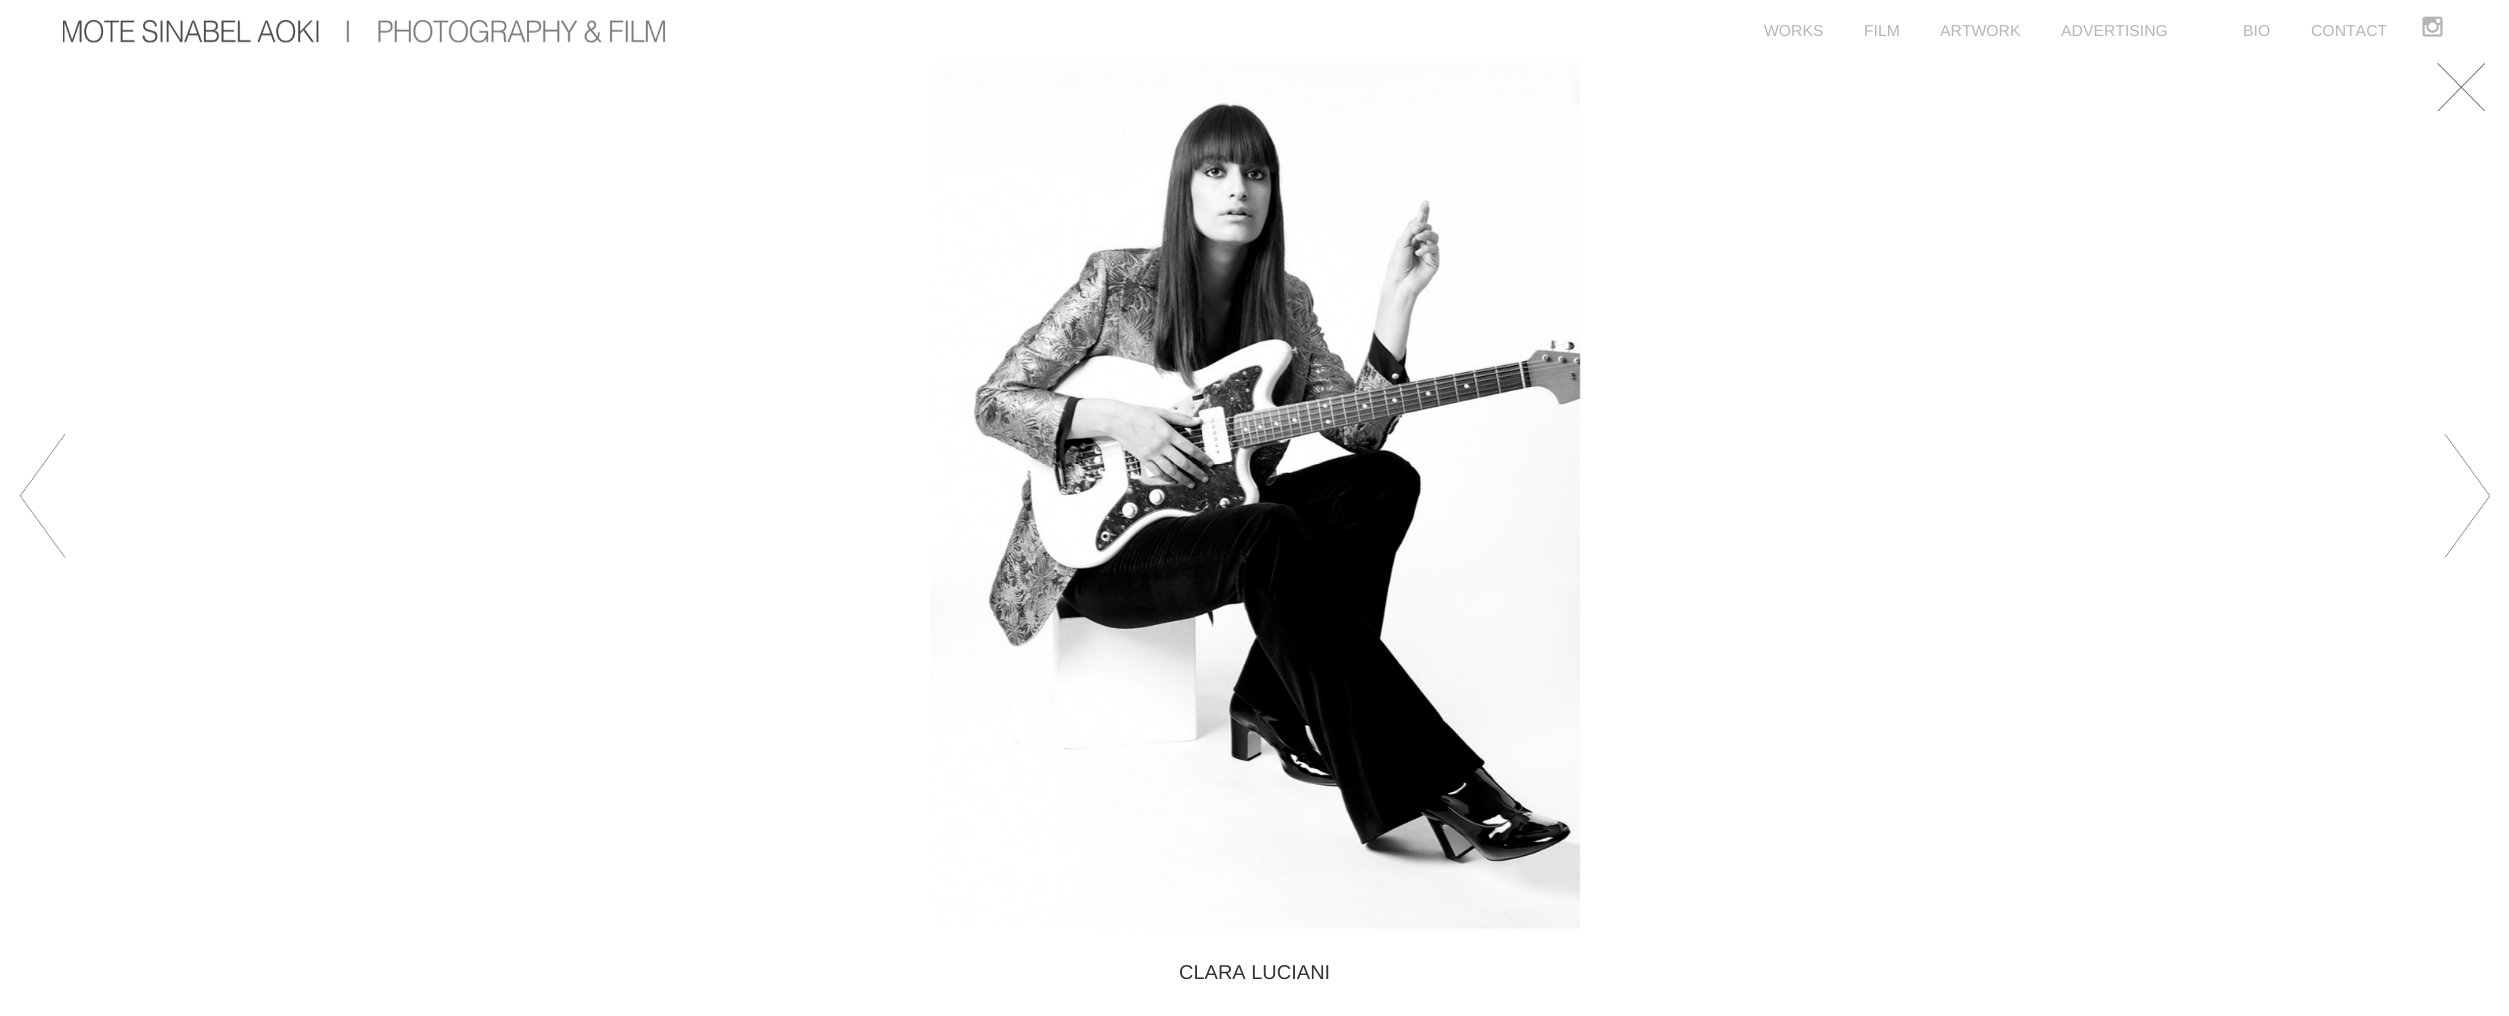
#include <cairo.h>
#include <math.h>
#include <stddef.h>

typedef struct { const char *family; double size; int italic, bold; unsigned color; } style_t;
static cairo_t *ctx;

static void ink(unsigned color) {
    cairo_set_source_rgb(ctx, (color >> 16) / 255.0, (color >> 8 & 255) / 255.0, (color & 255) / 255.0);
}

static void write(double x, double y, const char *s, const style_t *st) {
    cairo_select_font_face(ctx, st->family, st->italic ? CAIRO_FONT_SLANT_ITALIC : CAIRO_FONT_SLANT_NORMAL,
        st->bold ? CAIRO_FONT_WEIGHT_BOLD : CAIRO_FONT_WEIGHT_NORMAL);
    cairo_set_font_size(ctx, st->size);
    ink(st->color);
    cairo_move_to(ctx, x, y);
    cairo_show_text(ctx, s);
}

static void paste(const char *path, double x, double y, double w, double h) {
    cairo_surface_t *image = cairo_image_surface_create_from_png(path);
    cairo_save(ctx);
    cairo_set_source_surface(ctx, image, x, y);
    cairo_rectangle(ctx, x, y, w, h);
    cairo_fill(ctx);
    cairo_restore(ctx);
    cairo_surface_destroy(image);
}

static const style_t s1 = {"Liberation Sans", 15.75, 0, 0, 0xb5b5b5};
static const style_t s2 = {"Liberation Sans", 20, 0, 0, 0x333333};

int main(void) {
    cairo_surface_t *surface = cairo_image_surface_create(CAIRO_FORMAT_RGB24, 2509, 1016);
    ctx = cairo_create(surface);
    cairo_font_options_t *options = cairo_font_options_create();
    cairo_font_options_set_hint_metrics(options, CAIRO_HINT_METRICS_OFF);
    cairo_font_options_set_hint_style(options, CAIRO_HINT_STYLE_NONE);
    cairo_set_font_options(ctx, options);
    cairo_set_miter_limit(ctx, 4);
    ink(0xffffff);
    cairo_paint(ctx);
    paste("pic1.png", 63, 20, 602, 23);
    write(1764, 36, "WORKS", &s1);
    write(1864, 36, "FILM", &s1);
    write(1940, 36, "ARTWORK", &s1);
    write(2061, 36, "ADVERTISING", &s1);
    write(2243, 36, "BIO", &s1);
    write(2311, 36, "CONTACT", &s1);
    paste("pic2.png", 2422, 16, 21, 21);
    paste("pic3.png", 2437, 63, 48, 49);
    paste("pic4.png", 20, 434, 45, 124);
    paste("pic5.png", 2444, 434, 46, 124);
    paste("pic6.png", 930, 63, 651, 866);
    write(1179, 979, "CLARA LUCIANI", &s2);
    cairo_surface_write_to_png(surface, "screenshot.png");
    cairo_font_options_destroy(options);
    cairo_destroy(ctx);
    cairo_surface_destroy(surface);
    return 0;
}
